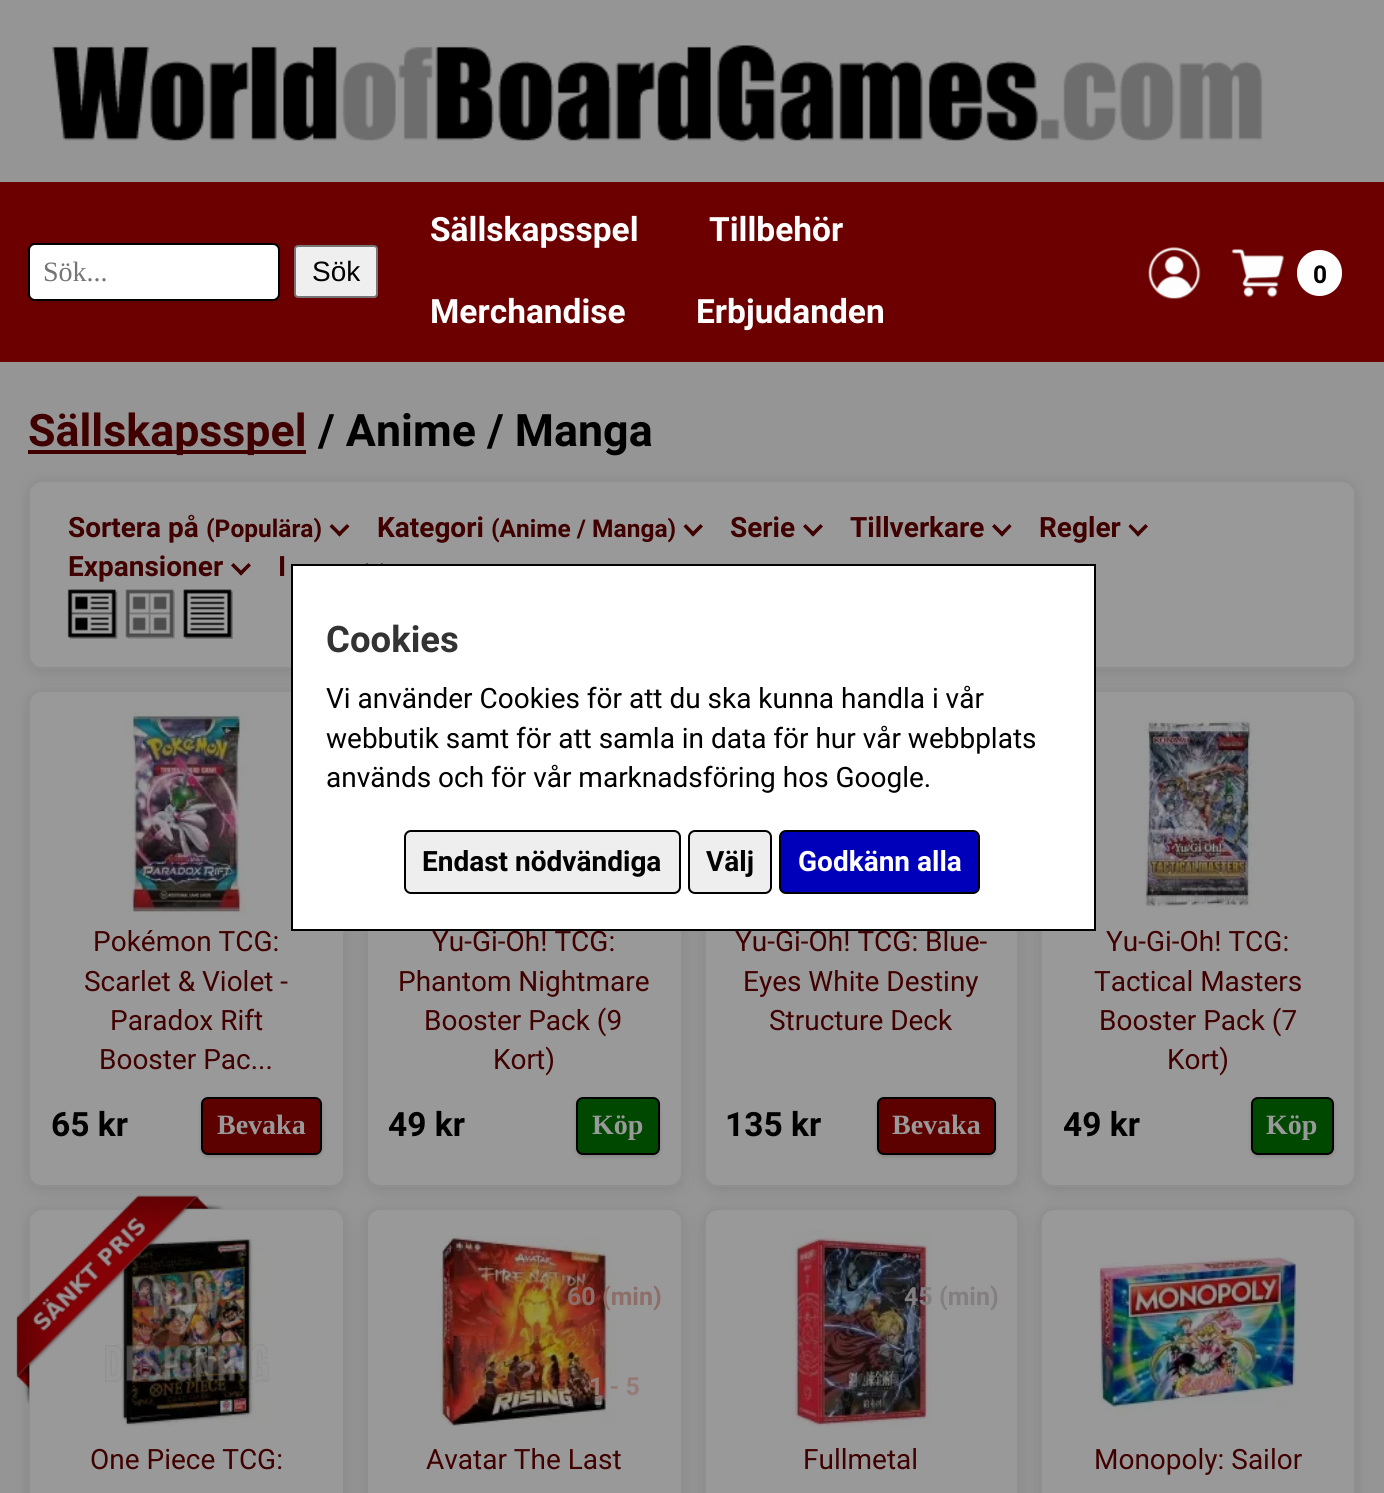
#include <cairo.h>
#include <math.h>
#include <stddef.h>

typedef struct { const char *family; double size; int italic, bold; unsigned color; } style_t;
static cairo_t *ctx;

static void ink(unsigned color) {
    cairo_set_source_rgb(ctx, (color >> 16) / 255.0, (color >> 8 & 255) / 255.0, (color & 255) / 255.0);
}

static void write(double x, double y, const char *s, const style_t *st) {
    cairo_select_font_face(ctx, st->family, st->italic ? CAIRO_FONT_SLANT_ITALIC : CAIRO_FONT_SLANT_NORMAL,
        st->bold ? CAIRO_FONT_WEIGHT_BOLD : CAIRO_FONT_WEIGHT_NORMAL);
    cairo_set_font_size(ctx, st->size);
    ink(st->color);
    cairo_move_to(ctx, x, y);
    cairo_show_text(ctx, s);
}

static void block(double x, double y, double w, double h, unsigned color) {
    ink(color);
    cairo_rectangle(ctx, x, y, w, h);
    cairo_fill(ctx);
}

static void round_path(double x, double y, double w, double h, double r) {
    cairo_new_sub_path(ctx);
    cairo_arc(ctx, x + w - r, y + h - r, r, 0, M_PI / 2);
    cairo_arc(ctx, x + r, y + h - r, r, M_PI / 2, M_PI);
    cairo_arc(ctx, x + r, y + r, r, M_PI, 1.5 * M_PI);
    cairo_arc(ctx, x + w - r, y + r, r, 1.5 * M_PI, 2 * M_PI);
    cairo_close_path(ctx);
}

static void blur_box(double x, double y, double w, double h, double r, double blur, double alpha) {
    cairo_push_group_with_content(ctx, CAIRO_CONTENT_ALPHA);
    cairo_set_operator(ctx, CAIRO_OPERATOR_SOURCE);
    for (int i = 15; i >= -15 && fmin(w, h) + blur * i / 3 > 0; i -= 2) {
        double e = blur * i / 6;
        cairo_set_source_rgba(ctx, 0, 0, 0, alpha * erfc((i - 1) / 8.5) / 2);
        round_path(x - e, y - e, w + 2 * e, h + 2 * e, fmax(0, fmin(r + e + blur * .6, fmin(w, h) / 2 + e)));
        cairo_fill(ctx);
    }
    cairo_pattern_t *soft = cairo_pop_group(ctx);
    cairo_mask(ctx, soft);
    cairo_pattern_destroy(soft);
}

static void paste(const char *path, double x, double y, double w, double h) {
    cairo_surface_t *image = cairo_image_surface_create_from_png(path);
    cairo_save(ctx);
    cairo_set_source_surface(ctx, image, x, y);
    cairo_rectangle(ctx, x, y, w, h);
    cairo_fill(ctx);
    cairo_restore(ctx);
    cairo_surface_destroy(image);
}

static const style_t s1 = {"Liberation Serif", 28, 0, 0, 0x757575};
static const style_t s2 = {"Liberation Sans", 28, 0, 0, 0x000000};
static const style_t s3 = {"Roboto", 33.5, 0, 1, 0xffffff};
static const style_t s4 = {"Roboto", 24.5, 0, 1, 0x000000};
static const style_t s5 = {"Roboto", 44.75, 0, 1, 0x410000};
static const style_t s6 = {"Roboto", 44.75, 0, 1, 0x000000};
static const style_t s7 = {"Roboto", 28, 0, 1, 0x410000};
static const style_t s8 = {"Roboto", 24.5, 0, 1, 0x410000};
static const style_t s9 = {"Roboto", 28, 0, 0, 0x410000};
static const style_t s10 = {"Roboto", 33.5, 0, 1, 0x000000};
static const style_t s11 = {"Liberation Serif", 28, 0, 1, 0x999999};
static const style_t s12 = {"Roboto", 25, 0, 1, 0x8d6e69};
static const style_t s13 = {"Roboto", 25, 0, 1, 0x947c76};
static const style_t s14 = {"Roboto", 25, 0, 1, 0x837e80};
static const style_t s15 = {"Roboto", 36.5, 0, 1, 0x333333};
static const style_t s16 = {"Roboto", 28, 0, 0, 0x000000};
static const style_t s17 = {"Roboto", 28, 0, 1, 0x000000};
static const style_t s18 = {"Roboto", 28, 0, 1, 0xffffff};

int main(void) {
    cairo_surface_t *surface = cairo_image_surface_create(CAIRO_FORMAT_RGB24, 1384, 1493);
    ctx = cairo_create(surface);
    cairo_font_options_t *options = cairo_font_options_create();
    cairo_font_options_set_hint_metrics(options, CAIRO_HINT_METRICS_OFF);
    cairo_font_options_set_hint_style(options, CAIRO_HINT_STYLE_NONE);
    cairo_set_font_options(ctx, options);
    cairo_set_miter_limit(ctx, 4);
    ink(0x959595);
    cairo_paint(ctx);
    paste("pic1.png", 52, 45, 1211, 98);
    block(0, 182, 1384, 180, 0x6c0000);
    ink(0x000000);
    blur_box(28, 245, 252, 58, 7, 2, 0.1);
    ink(0xffffff);
    round_path(29, 244, 250, 56, 6);
    cairo_fill_preserve(ctx);
    ink(0x000000);
    cairo_stroke(ctx);
    write(43, 281, "Sök...", &s1);
    ink(0xefefef);
    round_path(295, 246, 82, 51, 3);
    cairo_fill_preserve(ctx);
    ink(0x767676);
    cairo_stroke(ctx);
    write(312, 281, "Sök", &s2);
    write(430, 241, "Sällskapsspel", &s3);
    write(709, 241, "Tillbehör", &s3);
    write(430, 323, "Merchandise", &s3);
    write(696, 323, "Erbjudanden", &s3);
    paste("pic2.png", 1148, 247, 53, 53);
    paste("pic3.png", 1231, 249, 54, 49);
    round_path(1297, 250, 45, 46, 22.5);
    cairo_fill(ctx);
    write(1313, 283, "0", &s4);
    block(28, 450, 278, 4, 0x410000);
    write(28, 446, "Sällskapsspel", &s5);
    write(318, 446, "/ Anime / Manga", &s6);
    ink(0x000000);
    blur_box(28, 483, 1328, 189, 14, 7, 0.1);
    ink(0x999999);
    round_path(29, 481, 1326, 187, 13);
    cairo_fill_preserve(ctx);
    ink(0x8f8f8f);
    cairo_stroke(ctx);
    write(68, 537, "Sortera på", &s7);
    write(206, 537, "(Populära)", &s8);
    cairo_new_path(ctx);
    cairo_move_to(ctx, 347, 524);
    cairo_line_to(ctx, 349.5, 526.5);
    cairo_line_to(ctx, 339.5, 536.5);
    cairo_line_to(ctx, 337, 534);
    cairo_close_path(ctx);
    cairo_fill(ctx);
    cairo_new_path(ctx);
    cairo_move_to(ctx, 332, 524);
    cairo_line_to(ctx, 342, 534);
    cairo_line_to(ctx, 339.5, 536.5);
    cairo_line_to(ctx, 329.5, 526.5);
    cairo_close_path(ctx);
    cairo_fill(ctx);
    write(377, 537, "Kategori", &s7);
    write(491, 537, "(Anime / Manga)", &s8);
    cairo_new_path(ctx);
    cairo_move_to(ctx, 700.5, 524);
    cairo_line_to(ctx, 703, 526.5);
    cairo_line_to(ctx, 693, 536.5);
    cairo_line_to(ctx, 690.5, 534);
    cairo_close_path(ctx);
    cairo_fill(ctx);
    cairo_new_path(ctx);
    cairo_move_to(ctx, 686, 524);
    cairo_line_to(ctx, 695.5, 534);
    cairo_line_to(ctx, 693, 536.5);
    cairo_line_to(ctx, 683.5, 526.5);
    cairo_close_path(ctx);
    cairo_fill(ctx);
    write(730, 537, "Serie", &s7);
    cairo_new_path(ctx);
    cairo_move_to(ctx, 820.5, 524);
    cairo_line_to(ctx, 823, 526.5);
    cairo_line_to(ctx, 813, 536.5);
    cairo_line_to(ctx, 810.5, 534);
    cairo_close_path(ctx);
    cairo_fill(ctx);
    cairo_new_path(ctx);
    cairo_move_to(ctx, 805.5, 524);
    cairo_line_to(ctx, 815.5, 534);
    cairo_line_to(ctx, 813, 536.5);
    cairo_line_to(ctx, 803, 526.5);
    cairo_close_path(ctx);
    cairo_fill(ctx);
    write(850, 537, "Tillverkare", &s7);
    cairo_new_path(ctx);
    cairo_move_to(ctx, 1009.5, 524);
    cairo_line_to(ctx, 1011.5, 526.5);
    cairo_line_to(ctx, 1002, 536.5);
    cairo_line_to(ctx, 999.5, 534);
    cairo_close_path(ctx);
    cairo_fill(ctx);
    cairo_new_path(ctx);
    cairo_move_to(ctx, 994.5, 524);
    cairo_line_to(ctx, 1004.5, 534);
    cairo_line_to(ctx, 1002, 536.5);
    cairo_line_to(ctx, 992, 526.5);
    cairo_close_path(ctx);
    cairo_fill(ctx);
    write(1039, 537, "Regler", &s7);
    cairo_new_path(ctx);
    cairo_move_to(ctx, 1145.5, 524);
    cairo_line_to(ctx, 1148, 526.5);
    cairo_line_to(ctx, 1138, 536.5);
    cairo_line_to(ctx, 1135.5, 534);
    cairo_close_path(ctx);
    cairo_fill(ctx);
    cairo_new_path(ctx);
    cairo_move_to(ctx, 1130.5, 524);
    cairo_line_to(ctx, 1140.5, 534);
    cairo_line_to(ctx, 1138, 536.5);
    cairo_line_to(ctx, 1128.5, 526.5);
    cairo_close_path(ctx);
    cairo_fill(ctx);
    write(68, 576, "Expansioner", &s7);
    cairo_new_path(ctx);
    cairo_move_to(ctx, 248.5, 563);
    cairo_line_to(ctx, 251, 565.5);
    cairo_line_to(ctx, 241, 575.5);
    cairo_line_to(ctx, 238.5, 573);
    cairo_close_path(ctx);
    cairo_fill(ctx);
    cairo_new_path(ctx);
    cairo_move_to(ctx, 233.5, 563);
    cairo_line_to(ctx, 243.5, 573);
    cairo_line_to(ctx, 241, 575.5);
    cairo_line_to(ctx, 231, 565.5);
    cairo_close_path(ctx);
    cairo_fill(ctx);
    write(278, 576, "I", &s7);
    cairo_new_path(ctx);
    cairo_move_to(ctx, 382, 563);
    cairo_line_to(ctx, 384, 565.5);
    cairo_line_to(ctx, 374.5, 575.5);
    cairo_line_to(ctx, 372, 573);
    cairo_close_path(ctx);
    cairo_fill(ctx);
    cairo_new_path(ctx);
    cairo_move_to(ctx, 367, 563);
    cairo_line_to(ctx, 377, 573);
    cairo_line_to(ctx, 374.5, 575.5);
    cairo_line_to(ctx, 364.5, 565.5);
    cairo_close_path(ctx);
    cairo_fill(ctx);
    paste("pic4.png", 67, 589, 51, 50);
    paste("pic5.png", 125, 589, 50, 50);
    paste("pic6.png", 183, 589, 50, 50);
    ink(0x000000);
    blur_box(28, 693, 317, 497, 14, 7, 0.1);
    ink(0x999999);
    round_path(29, 691, 315, 495, 13);
    cairo_fill_preserve(ctx);
    ink(0x8f8f8f);
    cairo_stroke(ctx);
    paste("pic7.png", 126, 712, 121, 203);
    write(93, 951, "Pokémon TCG:", &s9);
    write(84, 991, "Scarlet & Violet -", &s9);
    write(110, 1030, "Paradox Rift", &s9);
    write(99, 1069, "Booster Pac...", &s9);
    write(51, 1136, "65 kr", &s10);
    ink(0x000000);
    blur_box(201, 1099, 121, 58, 7, 2, 0.15);
    ink(0x5c0000);
    round_path(202, 1098, 119, 56, 6);
    cairo_fill_preserve(ctx);
    ink(0x000000);
    cairo_stroke(ctx);
    write(217, 1134, "Bevaka", &s11);
    ink(0x000000);
    blur_box(366, 693, 317, 497, 14, 7, 0.1);
    ink(0x999999);
    round_path(367, 691, 315, 495, 13);
    cairo_fill_preserve(ctx);
    ink(0x8f8f8f);
    cairo_stroke(ctx);
    write(432, 951, "Yu-Gi-Oh! TCG:", &s9);
    write(398, 991, "Phantom Nightmare", &s9);
    write(424, 1030, "Booster Pack (9", &s9);
    write(493, 1069, "Kort)", &s9);
    write(388, 1136, "49 kr", &s10);
    ink(0x000000);
    blur_box(576, 1099, 84, 58, 7, 2, 0.15);
    ink(0x004700);
    round_path(577, 1098, 82, 56, 6);
    cairo_fill_preserve(ctx);
    ink(0x000000);
    cairo_stroke(ctx);
    write(592, 1134, "Köp", &s11);
    ink(0x000000);
    blur_box(704, 693, 315, 497, 14, 7, 0.1);
    ink(0x999999);
    round_path(705, 691, 313, 495, 13);
    cairo_fill_preserve(ctx);
    ink(0x8f8f8f);
    cairo_stroke(ctx);
    write(735, 951, "Yu-Gi-Oh! TCG: Blue-", &s9);
    write(743, 991, "Eyes White Destiny", &s9);
    write(769, 1030, "Structure Deck", &s9);
    write(725, 1136, "135 kr", &s10);
    ink(0x000000);
    blur_box(877, 1099, 119, 58, 7, 2, 0.15);
    ink(0x5c0000);
    round_path(878, 1098, 117, 56, 6);
    cairo_fill_preserve(ctx);
    ink(0x000000);
    cairo_stroke(ctx);
    write(892, 1134, "Bevaka", &s11);
    ink(0x000000);
    blur_box(1040, 693, 316, 497, 14, 7, 0.1);
    ink(0x999999);
    round_path(1041, 691, 314, 495, 13);
    cairo_fill_preserve(ctx);
    ink(0x8f8f8f);
    cairo_stroke(ctx);
    paste("pic8.png", 1144, 718, 113, 189);
    write(1106, 951, "Yu-Gi-Oh! TCG:", &s9);
    write(1094, 991, "Tactical Masters", &s9);
    write(1099, 1030, "Booster Pack (7", &s9);
    write(1167, 1069, "Kort)", &s9);
    write(1063, 1136, "49 kr", &s10);
    ink(0x000000);
    blur_box(1251, 1099, 83, 58, 7, 2, 0.15);
    ink(0x004700);
    round_path(1252, 1098, 81, 56, 6);
    cairo_fill_preserve(ctx);
    ink(0x000000);
    cairo_stroke(ctx);
    write(1266, 1134, "Köp", &s11);
    ink(0x000000);
    blur_box(28, 1211, 317, 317, 14, 7, 0.1);
    ink(0x999999);
    round_path(29, 1209, 315, 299, 13);
    cairo_fill_preserve(ctx);
    ink(0x8f8f8f);
    cairo_stroke(ctx);
    paste("pic10.png", 105, 1236, 165, 190);
    paste("pic9.png", 16, 1195, 207, 209);
    write(90, 1469, "One Piece TCG:", &s9);
    ink(0x000000);
    blur_box(366, 1211, 317, 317, 14, 7, 0.1);
    ink(0x999999);
    round_path(367, 1209, 315, 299, 13);
    cairo_fill_preserve(ctx);
    ink(0x8f8f8f);
    cairo_stroke(ctx);
    paste("pic11.png", 437, 1235, 179, 191);
    write(567, 1305, "60 (min)", &s12);
    write(589, 1395, "1 - 5", &s13);
    write(426, 1469, "Avatar The Last", &s9);
    ink(0x000000);
    blur_box(704, 1211, 315, 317, 14, 7, 0.1);
    ink(0x999999);
    round_path(705, 1209, 313, 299, 13);
    cairo_fill_preserve(ctx);
    ink(0x8f8f8f);
    cairo_stroke(ctx);
    paste("pic12.png", 791, 1230, 141, 197);
    write(904, 1305, "45 (min)", &s14);
    write(803, 1469, "Fullmetal", &s9);
    ink(0x000000);
    blur_box(1040, 1211, 316, 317, 14, 7, 0.1);
    ink(0x999999);
    round_path(1041, 1209, 314, 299, 13);
    cairo_fill_preserve(ctx);
    ink(0x8f8f8f);
    cairo_stroke(ctx);
    paste("pic13.png", 1098, 1257, 203, 158);
    write(1094, 1469, "Monopoly: Sailor", &s9);
    ink(0xffffff);
    cairo_rectangle(ctx, 292, 565, 803, 365);
    cairo_fill_preserve(ctx);
    ink(0x000000);
    cairo_stroke(ctx);
    write(326, 652, "Cookies", &s15);
    write(326, 708, "Vi använder Cookies för att du ska kunna handla i vår", &s16);
    write(326, 748, "webbutik samt för att samla in data för hur vår webbplats", &s16);
    write(326, 787, "används och för vår marknadsföring hos Google.", &s16);
    ink(0xeeeeee);
    round_path(405, 831, 275, 62, 6);
    cairo_fill_preserve(ctx);
    ink(0x000000);
    cairo_stroke(ctx);
    write(422, 871, "Endast nödvändiga", &s17);
    ink(0xeeeeee);
    round_path(689, 831, 82, 62, 6);
    cairo_fill_preserve(ctx);
    ink(0x000000);
    cairo_stroke(ctx);
    write(706, 871, "Välj", &s17);
    ink(0x0000bb);
    round_path(780, 831, 199, 62, 6);
    cairo_fill_preserve(ctx);
    ink(0x000000);
    cairo_stroke(ctx);
    write(798, 871, "Godkänn alla", &s18);
    cairo_surface_write_to_png(surface, "screenshot.png");
    cairo_font_options_destroy(options);
    cairo_destroy(ctx);
    cairo_surface_destroy(surface);
    return 0;
}
